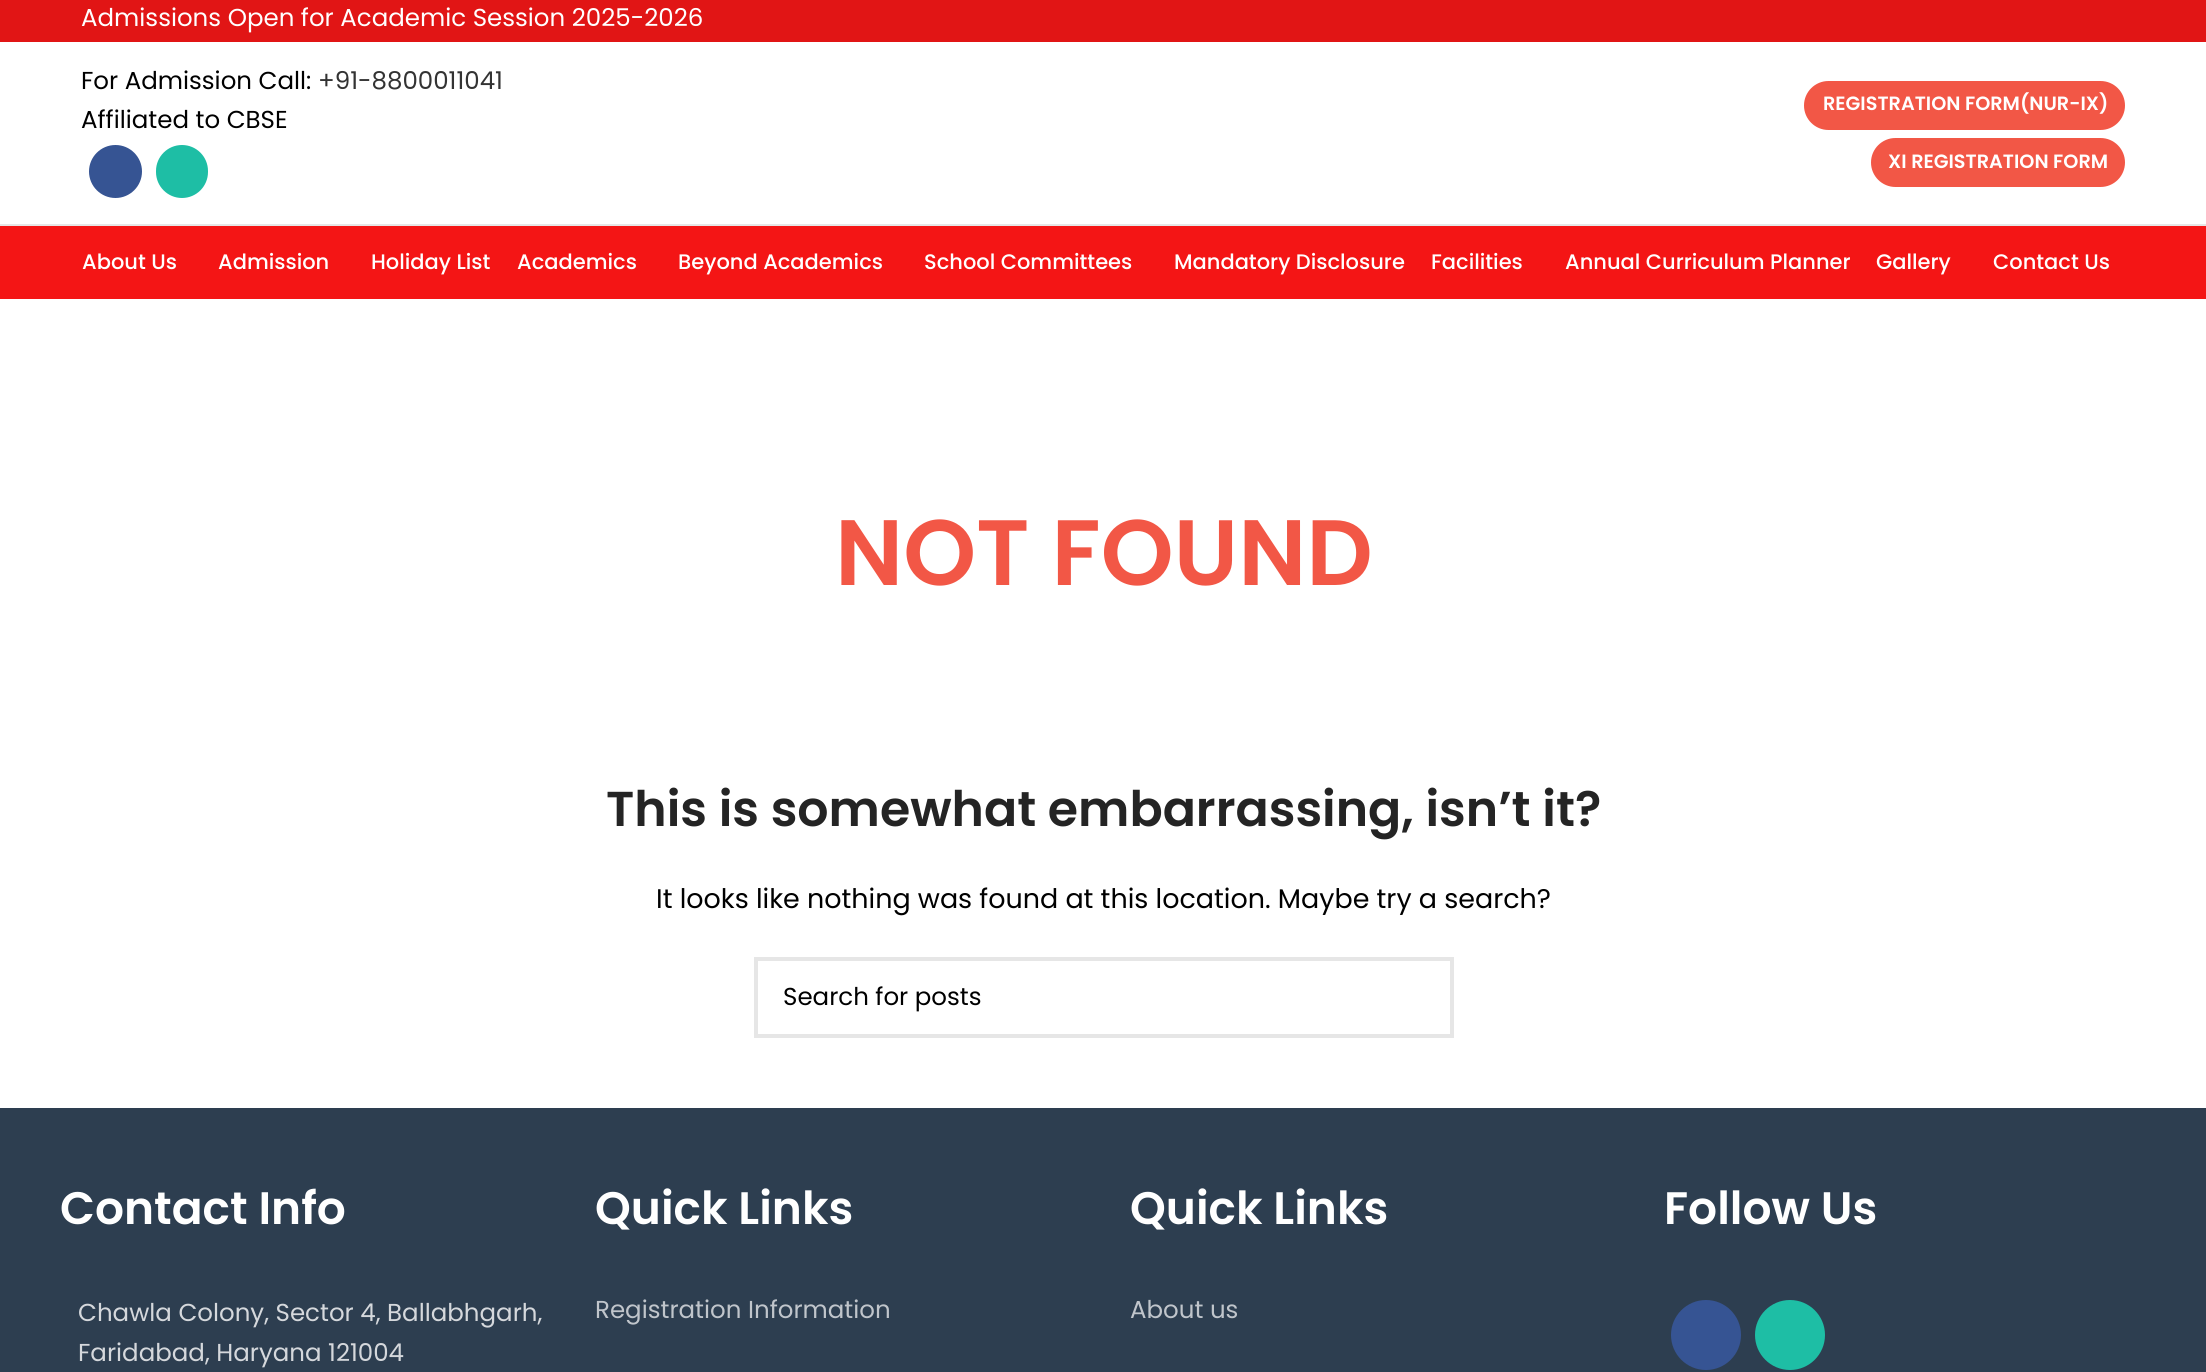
#include <cairo.h>
#include <math.h>
#include <stddef.h>

typedef struct { const char *family; double size; int italic, bold; unsigned color; } style_t;
static cairo_t *ctx;

static void ink(unsigned color) {
    cairo_set_source_rgb(ctx, (color >> 16) / 255.0, (color >> 8 & 255) / 255.0, (color & 255) / 255.0);
}

static void write(double x, double y, const char *s, const style_t *st) {
    cairo_select_font_face(ctx, st->family, st->italic ? CAIRO_FONT_SLANT_ITALIC : CAIRO_FONT_SLANT_NORMAL,
        st->bold ? CAIRO_FONT_WEIGHT_BOLD : CAIRO_FONT_WEIGHT_NORMAL);
    cairo_set_font_size(ctx, st->size);
    ink(st->color);
    cairo_move_to(ctx, x, y);
    cairo_show_text(ctx, s);
}

static void block(double x, double y, double w, double h, unsigned color) {
    ink(color);
    cairo_rectangle(ctx, x, y, w, h);
    cairo_fill(ctx);
}

static void round_path(double x, double y, double w, double h, double r) {
    cairo_new_sub_path(ctx);
    cairo_arc(ctx, x + w - r, y + h - r, r, 0, M_PI / 2);
    cairo_arc(ctx, x + r, y + h - r, r, M_PI / 2, M_PI);
    cairo_arc(ctx, x + r, y + r, r, M_PI, 1.5 * M_PI);
    cairo_arc(ctx, x + w - r, y + r, r, 1.5 * M_PI, 2 * M_PI);
    cairo_close_path(ctx);
}

static const style_t s1 = {"Poppins", 24.5, 0, 0, 0xffffff};
static const style_t s2 = {"Poppins", 24.5, 0, 0, 0x000000};
static const style_t s3 = {"Poppins", 24.5, 0, 0, 0x333333};
static const style_t s4 = {"Poppins SemiBold", 19.25, 0, 0, 0xffffff};
static const style_t s5 = {"Poppins Medium", 21, 0, 0, 0xffffff};
static const style_t s6 = {"Poppins SemiBold", 92.75, 0, 0, 0xf25746};
static const style_t s7 = {"Poppins SemiBold", 49, 0, 0, 0x242424};
static const style_t s8 = {"Poppins", 26.95, 0, 0, 0x000000};
static const style_t s9 = {"Poppins SemiBold", 45.5, 0, 0, 0xffffff};
static const style_t s10 = {"Poppins", 24.5, 0, 0, 0xd5d8dc};
static const style_t s11 = {"Poppins", 24.5, 0, 0, 0xc0c5cb};

int main(void) {
    cairo_surface_t *surface = cairo_image_surface_create(CAIRO_FORMAT_RGB24, 2206, 1372);
    ctx = cairo_create(surface);
    cairo_font_options_t *options = cairo_font_options_create();
    cairo_font_options_set_hint_metrics(options, CAIRO_HINT_METRICS_OFF);
    cairo_font_options_set_hint_style(options, CAIRO_HINT_STYLE_NONE);
    cairo_set_font_options(ctx, options);
    cairo_set_miter_limit(ctx, 4);
    ink(0xffffff);
    cairo_paint(ctx);
    block(0, 0, 2206, 42, 0xe11515);
    write(81, 26, "Admissions Open for Academic Session 2025-2026", &s1);
    block(0, 224, 2206, 2, 0xe6e6e6);
    write(81, 89, "For Admission Call:", &s2);
    write(318, 89, "+91-8800011041", &s3);
    write(81, 128, "Affiliated to CBSE", &s2);
    ink(0x365493);
    cairo_new_path(ctx);
    cairo_arc(ctx, 115.5, 171.5, 26.5, 0, 2 * M_PI);
    cairo_fill(ctx);
    ink(0x1ebea5);
    round_path(156, 145, 52, 53, 26);
    cairo_fill(ctx);
    ink(0xf25746);
    round_path(1804, 81, 321, 49, 24.5);
    cairo_fill(ctx);
    write(1823, 110, "REGISTRATION FORM(NUR-IX)", &s4);
    ink(0xf25746);
    round_path(1871, 138, 254, 49, 24.5);
    cairo_fill(ctx);
    write(1888, 168, "XI REGISTRATION FORM", &s4);
    block(0, 226, 2206, 73, 0xf41515);
    write(82, 269, "About Us", &s5);
    write(218, 269, "Admission", &s5);
    write(371, 269, "Holiday List", &s5);
    write(517, 269, "Academics", &s5);
    write(678, 269, "Beyond Academics", &s5);
    write(924, 269, "School Committees", &s5);
    write(1174, 269, "Mandatory Disclosure", &s5);
    write(1431, 269, "Facilities", &s5);
    write(1565, 269, "Annual Curriculum Planner", &s5);
    write(1876, 269, "Gallery", &s5);
    write(1993, 269, "Contact Us", &s5);
    write(835, 585, "NOT FOUND", &s6);
    write(606, 826, "This is somewhat embarrassing, isn’t it?", &s7);
    write(656, 908, "It looks like nothing was found at this location. Maybe try a search?", &s8);
    cairo_rectangle(ctx, 756, 959, 696, 77);
    ink(0xe6e6e6);
    cairo_set_line_width(ctx, 4);
    cairo_stroke(ctx);
    write(783, 1005, "Search for posts", &s2);
    block(0, 1108, 2206, 264, 0x2d3e50);
    write(60, 1224, "Contact Info", &s9);
    write(78, 1321, "Chawla Colony, Sector 4, Ballabhgarh,", &s10);
    write(78, 1361, "Faridabad, Haryana 121004", &s10);
    write(595, 1224, "Quick Links", &s9);
    write(595, 1318, "Registration Information", &s11);
    write(1130, 1224, "Quick Links", &s9);
    write(1130, 1318, "About us", &s11);
    write(1664, 1224, "Follow Us", &s9);
    ink(0x365493);
    cairo_new_path(ctx);
    cairo_arc(ctx, 1706, 1335, 35, 0, 2 * M_PI);
    cairo_fill(ctx);
    ink(0x1ebea5);
    cairo_arc(ctx, 1790, 1335, 35, 0, 2 * M_PI);
    cairo_fill(ctx);
    cairo_surface_write_to_png(surface, "screenshot.png");
    cairo_font_options_destroy(options);
    cairo_destroy(ctx);
    cairo_surface_destroy(surface);
    return 0;
}
